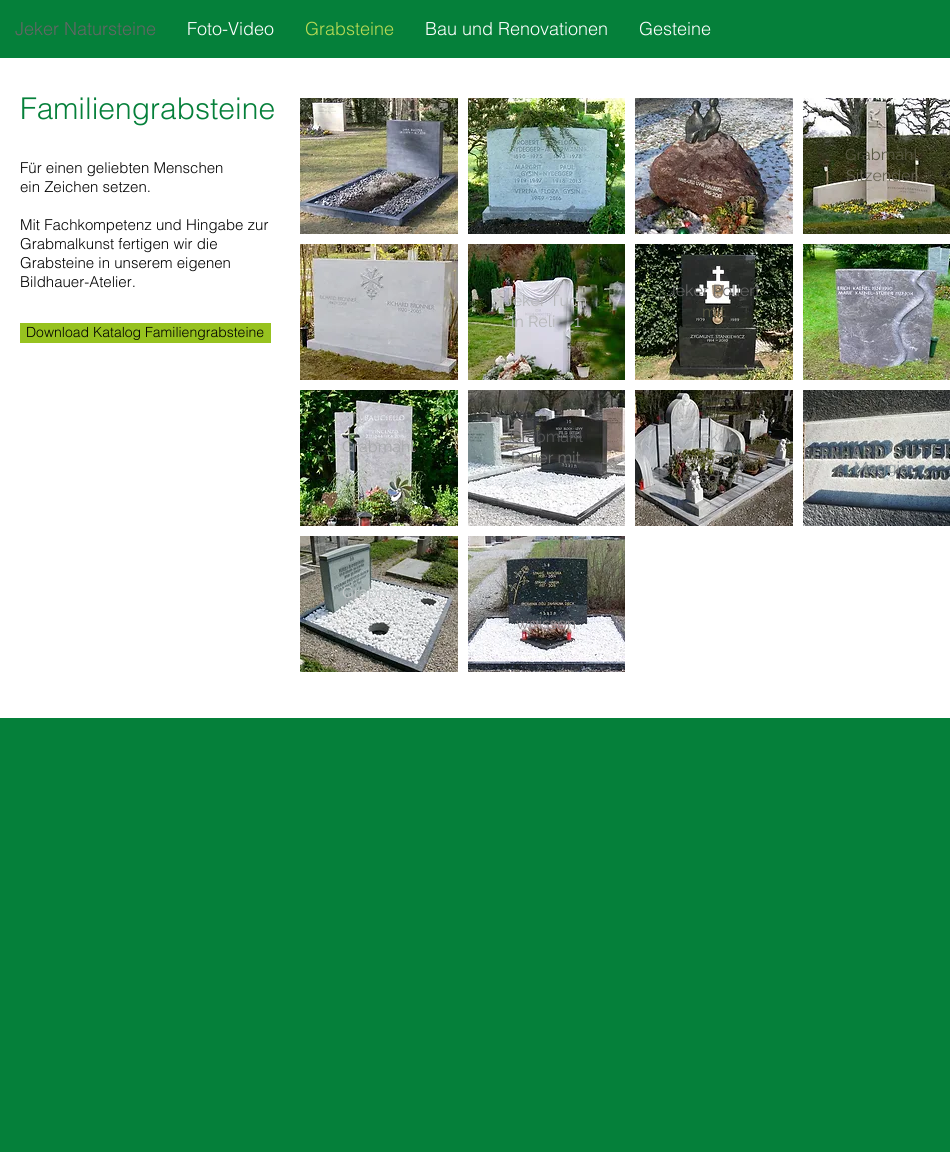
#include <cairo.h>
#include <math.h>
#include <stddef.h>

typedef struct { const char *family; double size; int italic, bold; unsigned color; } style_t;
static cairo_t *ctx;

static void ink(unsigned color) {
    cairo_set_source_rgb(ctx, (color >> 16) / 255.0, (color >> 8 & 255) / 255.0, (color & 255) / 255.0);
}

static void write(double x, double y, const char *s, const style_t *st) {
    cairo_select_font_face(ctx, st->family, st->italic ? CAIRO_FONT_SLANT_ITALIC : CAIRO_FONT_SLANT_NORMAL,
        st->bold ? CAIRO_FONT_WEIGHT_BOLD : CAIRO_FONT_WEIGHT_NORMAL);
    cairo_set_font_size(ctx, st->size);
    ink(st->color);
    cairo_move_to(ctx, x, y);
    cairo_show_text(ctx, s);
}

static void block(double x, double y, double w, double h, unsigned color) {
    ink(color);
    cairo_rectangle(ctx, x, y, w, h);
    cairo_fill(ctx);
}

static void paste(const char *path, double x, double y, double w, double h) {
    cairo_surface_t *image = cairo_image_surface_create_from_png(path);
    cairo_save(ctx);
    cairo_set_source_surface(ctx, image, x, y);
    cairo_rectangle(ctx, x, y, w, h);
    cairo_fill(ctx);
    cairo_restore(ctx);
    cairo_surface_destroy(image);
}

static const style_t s1 = {"helvetica Light", 18, 0, 0, 0x656565};
static const style_t s2 = {"helvetica Light", 18, 0, 0, 0xffffff};
static const style_t s3 = {"helvetica Light", 18, 0, 0, 0xbada55};
static const style_t s4 = {"helvetica Light", 30, 0, 0, 0x05803a};
static const style_t s5 = {"helvetica Light", 15, 0, 0, 0x000000};
static const style_t s6 = {"Raleway", 16, 0, 0, 0x8c7d76};
static const style_t s7 = {"Raleway", 16, 0, 0, 0x585843};
static const style_t s8 = {"Raleway", 16, 0, 0, 0x676453};
static const style_t s9 = {"Raleway", 16, 0, 0, 0xb5b6b8};
static const style_t s10 = {"Raleway", 16, 0, 0, 0x656565};
static const style_t s11 = {"Raleway", 16, 0, 0, 0xa7a9ab};
static const style_t s12 = {"Raleway", 16, 0, 0, 0x555656};
static const style_t s13 = {"Raleway", 16, 0, 0, 0x6a6b69};
static const style_t s14 = {"Raleway", 16, 0, 0, 0x605f5b};
static const style_t s15 = {"Raleway", 16, 0, 0, 0x8c9497};
static const style_t s16 = {"Raleway", 16, 0, 0, 0xc5cacb};
static const style_t s17 = {"Raleway", 16, 0, 0, 0x8f8a8e};
static const style_t s18 = {"helvetica Light", 14, 0, 0, 0x000000};

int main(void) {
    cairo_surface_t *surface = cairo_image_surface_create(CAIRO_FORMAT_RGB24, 950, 1152);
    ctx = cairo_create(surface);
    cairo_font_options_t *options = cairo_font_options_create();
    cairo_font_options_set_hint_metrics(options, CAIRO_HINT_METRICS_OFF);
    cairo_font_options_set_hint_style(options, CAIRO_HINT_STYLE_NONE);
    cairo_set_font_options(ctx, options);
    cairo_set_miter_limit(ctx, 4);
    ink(0x05803a);
    cairo_paint(ctx);
    write(15, 35, "Jeker Natursteine", &s1);
    write(187, 35, "Foto-Video", &s2);
    write(305, 35, "Grabsteine", &s3);
    write(425, 35, "Bau und Renovationen", &s2);
    write(639, 35, "Gesteine", &s2);
    block(0, 58, 950, 660, 0xffffff);
    write(20, 119, "Familiengrabsteine", &s4);
    write(20, 173, "Für einen geliebten Menschen", &s5);
    write(20, 192, "ein Zeichen setzen.", &s5);
    write(20, 230, "Mit Fachkompetenz und Hingabe zur", &s5);
    write(20, 249, "Grabmalkunst fertigen wir die", &s5);
    write(20, 268, "Grabsteine in unserem eigenen", &s5);
    write(20, 287, "Bildhauer-Atelier.", &s5);
    paste("pic1.png", 300, 98, 158, 136);
    paste("pic2.png", 468, 98, 157, 136);
    paste("pic3.png", 635, 98, 158, 136);
    write(736, 150, "hl", &s6);
    paste("pic4.png", 803, 98, 147, 136);
    write(845, 160, "Grabmahl", &s7);
    write(846, 181, "Sitzender", &s8);
    paste("pic5.png", 300, 244, 158, 136);
    paste("pic6.png", 468, 244, 157, 136);
    write(505, 306, "Jeker Tuch", &s9);
    write(511, 327, "in Reli", &s9);
    write(574, 327, "1", &s9);
    paste("pic7.png", 635, 244, 158, 136);
    write(668, 296, "Jeker Poliert", &s10);
    write(702, 317, "mit", &s7);
    paste("pic8.png", 803, 244, 147, 136);
    paste("pic9.png", 300, 390, 158, 136);
    write(342, 452, "Grabmahl", &s11);
    paste("pic10.png", 468, 390, 157, 136);
    write(510, 442, "Grabmahl", &s12);
    write(511, 463, "Polier mit", &s13);
    paste("pic11.png", 635, 390, 158, 136);
    write(693, 442, "Jeker", &s11);
    write(677, 463, "asiatische", &s8);
    write(682, 483, "Drachen", &s14);
    paste("pic12.png", 803, 390, 147, 136);
    write(854, 473, "Maggia", &s15);
    paste("pic13.png", 300, 536, 158, 136);
    write(342, 598, "Grabmahl", &s16);
    paste("pic14.png", 468, 536, 157, 136);
    write(516, 629, "weissen", &s17);
    block(20, 323, 251, 20, 0x97c21f);
    write(26, 337, "Download Katalog Familiengrabsteine", &s18);
    cairo_surface_write_to_png(surface, "screenshot.png");
    cairo_font_options_destroy(options);
    cairo_destroy(ctx);
    cairo_surface_destroy(surface);
    return 0;
}
